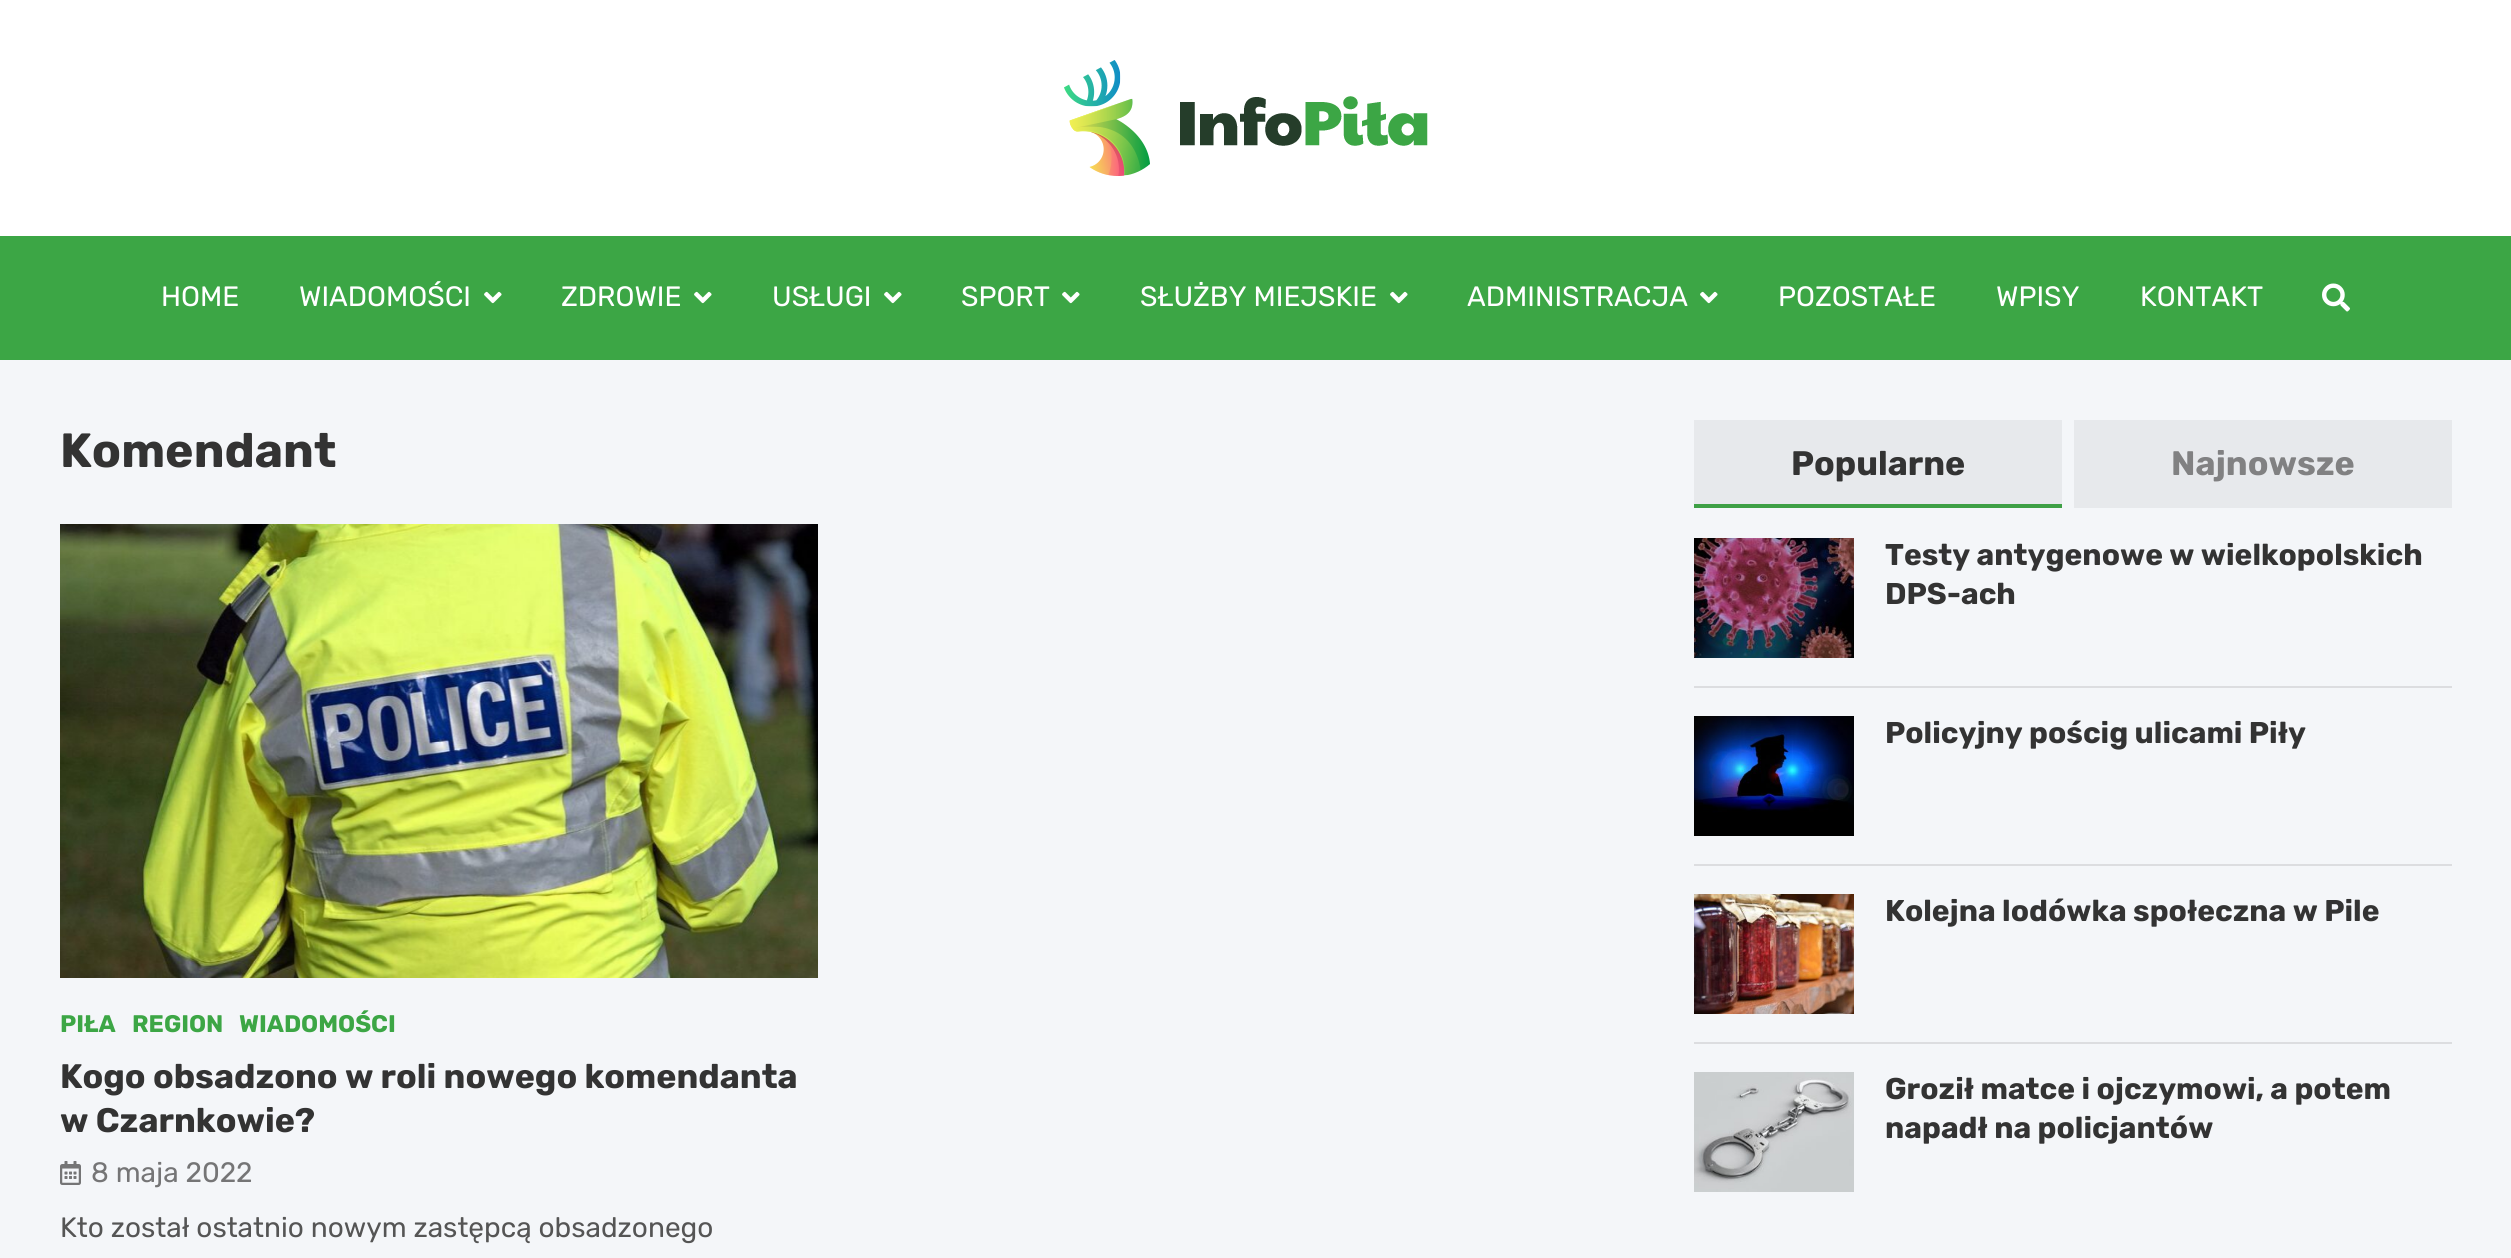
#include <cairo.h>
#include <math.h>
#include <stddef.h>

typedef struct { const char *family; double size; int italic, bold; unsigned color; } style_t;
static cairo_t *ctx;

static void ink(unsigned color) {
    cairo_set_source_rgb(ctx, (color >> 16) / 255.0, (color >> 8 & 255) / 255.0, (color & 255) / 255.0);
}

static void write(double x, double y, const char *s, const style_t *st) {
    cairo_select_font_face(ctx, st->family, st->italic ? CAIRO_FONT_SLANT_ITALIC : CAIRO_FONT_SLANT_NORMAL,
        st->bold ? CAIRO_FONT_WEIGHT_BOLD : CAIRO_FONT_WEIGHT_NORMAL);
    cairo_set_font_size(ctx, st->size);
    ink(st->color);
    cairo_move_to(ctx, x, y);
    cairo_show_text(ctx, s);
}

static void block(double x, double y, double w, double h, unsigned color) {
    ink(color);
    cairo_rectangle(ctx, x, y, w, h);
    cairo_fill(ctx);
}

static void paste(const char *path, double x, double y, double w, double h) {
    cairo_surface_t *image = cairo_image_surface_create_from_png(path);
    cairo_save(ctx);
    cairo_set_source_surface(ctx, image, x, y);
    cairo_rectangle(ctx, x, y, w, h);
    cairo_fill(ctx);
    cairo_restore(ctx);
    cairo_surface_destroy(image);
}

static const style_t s1 = {"Rubik", 28, 0, 0, 0xffffff};
static const style_t s2 = {"Rubik", 48, 0, 1, 0x333333};
static const style_t s3 = {"Rubik", 24, 0, 1, 0x3ca645};
static const style_t s4 = {"Rubik", 34, 0, 1, 0x333333};
static const style_t s5 = {"Rubik", 28, 0, 0, 0x757576};
static const style_t s6 = {"Rubik", 28, 0, 0, 0x555555};
static const style_t s7 = {"Rubik", 34, 0, 1, 0x818182};
static const style_t s8 = {"Rubik", 30, 0, 1, 0x333333};

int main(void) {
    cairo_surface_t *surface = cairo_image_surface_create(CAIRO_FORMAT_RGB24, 2511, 1258);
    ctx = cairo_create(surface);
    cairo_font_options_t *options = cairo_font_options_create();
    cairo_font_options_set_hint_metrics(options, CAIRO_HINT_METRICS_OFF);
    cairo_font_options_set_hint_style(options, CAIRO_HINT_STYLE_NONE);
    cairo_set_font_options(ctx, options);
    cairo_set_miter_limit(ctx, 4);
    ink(0xf4f6f9);
    cairo_paint(ctx);
    block(2074, 420, 378, 88, 0xe7e9ec);
    block(1694, 420, 368, 84, 0xe7e9ec);
    block(0, 0, 2511, 236, 0xffffff);
    paste("pic1.png", 1064, 60, 364, 116);
    block(0, 236, 2511, 124, 0x3ca645);
    write(161, 306, "HOME", &s1);
    write(299, 306, "WIADOMOŚCI", &s1);
    paste("pic2.png", 484, 291, 18, 13);
    write(561, 306, "ZDROWIE", &s1);
    paste("pic2.png", 694, 291, 18, 13);
    write(772, 306, "USŁUGI", &s1);
    paste("pic2.png", 884, 291, 18, 13);
    write(961, 306, "SPORT", &s1);
    paste("pic2.png", 1062, 291, 18, 13);
    write(1140, 306, "SŁUŻBY MIEJSKIE", &s1);
    paste("pic2.png", 1390, 291, 18, 13);
    write(1467, 306, "ADMINISTRACJA", &s1);
    paste("pic2.png", 1700, 291, 18, 13);
    write(1778, 306, "POZOSTAŁE", &s1);
    write(1996, 306, "WPISY", &s1);
    write(2140, 306, "KONTAKT", &s1);
    paste("pic3.png", 2322, 283, 28, 29);
    write(60, 467, "Komendant", &s2);
    paste("pic4.png", 60, 524, 758, 454);
    write(60, 1032, "PIŁA", &s3);
    write(132, 1032, "REGION", &s3);
    write(239, 1032, "WIADOMOŚCI", &s3);
    write(60, 1088, "Kogo obsadzono w roli nowego komendanta", &s4);
    write(60, 1132, "w Czarnkowie?", &s4);
    paste("pic5.png", 60, 1161, 21, 24);
    write(91, 1182, "8 maja 2022", &s5);
    write(60, 1237, "Kto został ostatnio nowym zastępcą obsadzonego", &s6);
    block(1694, 504, 368, 4, 0x3ea046);
    write(1791, 475, "Popularne", &s4);
    write(2171, 475, "Najnowsze", &s7);
    paste("pic6.png", 1694, 538, 160, 120);
    write(1885, 565, "Testy antygenowe w wielkopolskich", &s8);
    write(1885, 604, "DPS-ach", &s8);
    block(1694, 686, 758, 2, 0xdcdde0);
    paste("pic7.png", 1694, 716, 160, 120);
    write(1885, 743, "Policyjny pościg ulicami Piły", &s8);
    block(1694, 864, 758, 2, 0xdcdde0);
    paste("pic8.png", 1694, 894, 160, 120);
    write(1885, 921, "Kolejna lodówka społeczna w Pile", &s8);
    block(1694, 1042, 758, 2, 0xdcdde0);
    paste("pic9.png", 1694, 1072, 160, 120);
    write(1885, 1099, "Groził matce i ojczymowi, a potem", &s8);
    write(1885, 1138, "napadł na policjantów", &s8);
    cairo_surface_write_to_png(surface, "screenshot.png");
    cairo_font_options_destroy(options);
    cairo_destroy(ctx);
    cairo_surface_destroy(surface);
    return 0;
}
